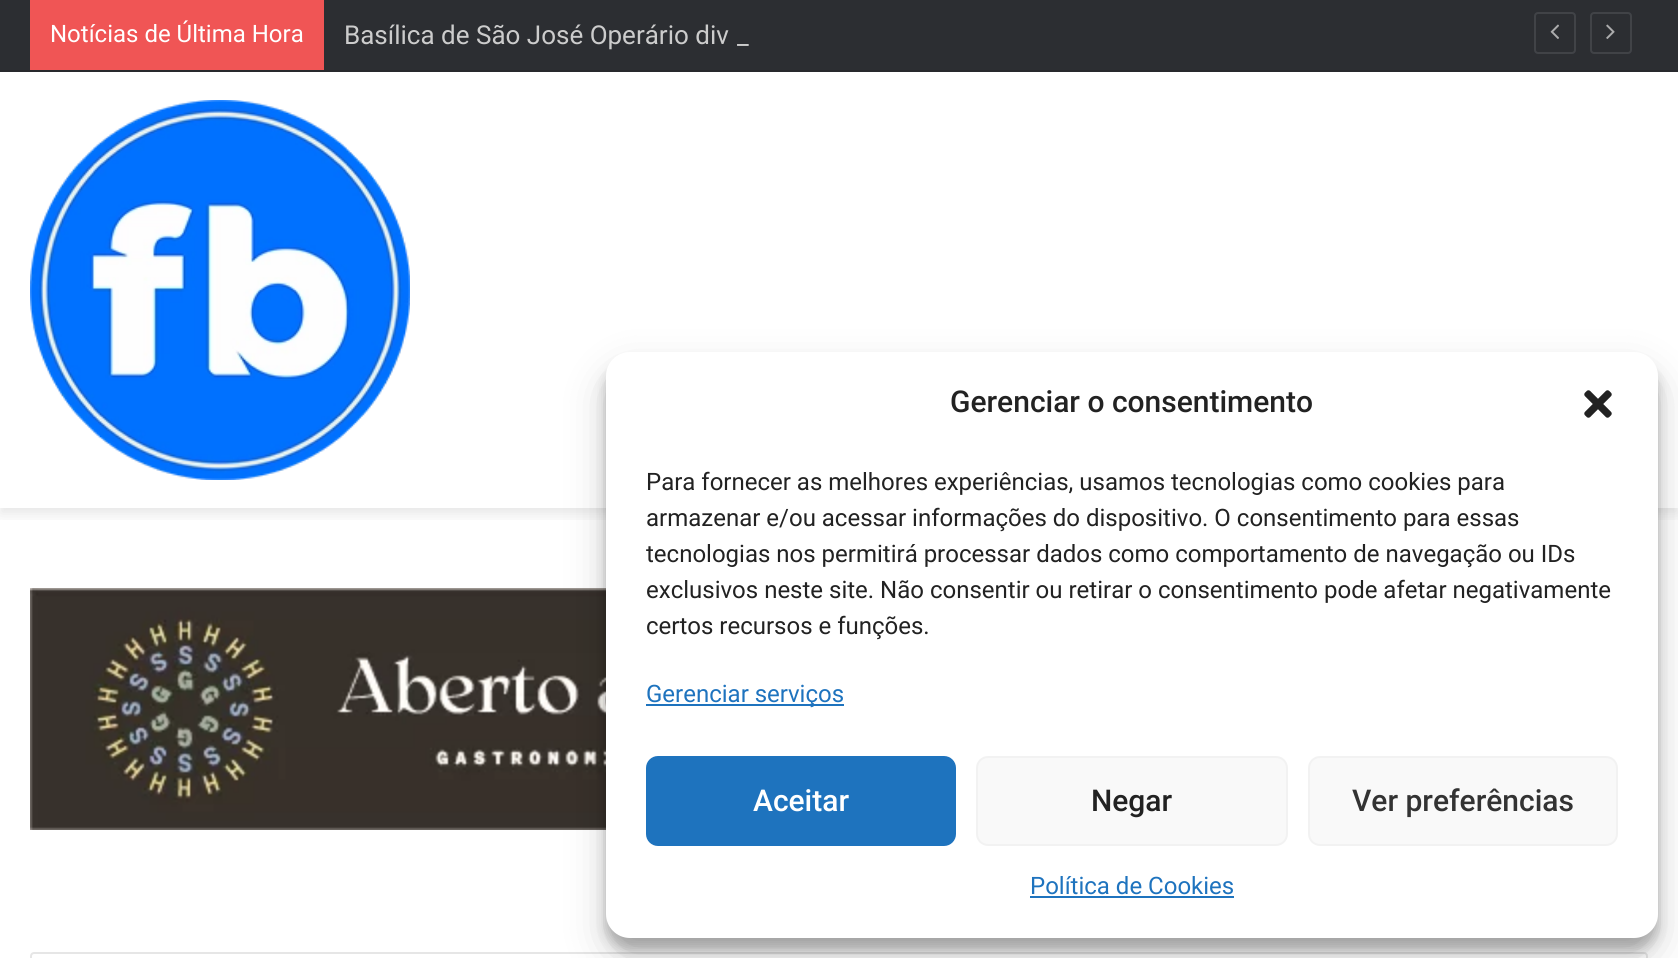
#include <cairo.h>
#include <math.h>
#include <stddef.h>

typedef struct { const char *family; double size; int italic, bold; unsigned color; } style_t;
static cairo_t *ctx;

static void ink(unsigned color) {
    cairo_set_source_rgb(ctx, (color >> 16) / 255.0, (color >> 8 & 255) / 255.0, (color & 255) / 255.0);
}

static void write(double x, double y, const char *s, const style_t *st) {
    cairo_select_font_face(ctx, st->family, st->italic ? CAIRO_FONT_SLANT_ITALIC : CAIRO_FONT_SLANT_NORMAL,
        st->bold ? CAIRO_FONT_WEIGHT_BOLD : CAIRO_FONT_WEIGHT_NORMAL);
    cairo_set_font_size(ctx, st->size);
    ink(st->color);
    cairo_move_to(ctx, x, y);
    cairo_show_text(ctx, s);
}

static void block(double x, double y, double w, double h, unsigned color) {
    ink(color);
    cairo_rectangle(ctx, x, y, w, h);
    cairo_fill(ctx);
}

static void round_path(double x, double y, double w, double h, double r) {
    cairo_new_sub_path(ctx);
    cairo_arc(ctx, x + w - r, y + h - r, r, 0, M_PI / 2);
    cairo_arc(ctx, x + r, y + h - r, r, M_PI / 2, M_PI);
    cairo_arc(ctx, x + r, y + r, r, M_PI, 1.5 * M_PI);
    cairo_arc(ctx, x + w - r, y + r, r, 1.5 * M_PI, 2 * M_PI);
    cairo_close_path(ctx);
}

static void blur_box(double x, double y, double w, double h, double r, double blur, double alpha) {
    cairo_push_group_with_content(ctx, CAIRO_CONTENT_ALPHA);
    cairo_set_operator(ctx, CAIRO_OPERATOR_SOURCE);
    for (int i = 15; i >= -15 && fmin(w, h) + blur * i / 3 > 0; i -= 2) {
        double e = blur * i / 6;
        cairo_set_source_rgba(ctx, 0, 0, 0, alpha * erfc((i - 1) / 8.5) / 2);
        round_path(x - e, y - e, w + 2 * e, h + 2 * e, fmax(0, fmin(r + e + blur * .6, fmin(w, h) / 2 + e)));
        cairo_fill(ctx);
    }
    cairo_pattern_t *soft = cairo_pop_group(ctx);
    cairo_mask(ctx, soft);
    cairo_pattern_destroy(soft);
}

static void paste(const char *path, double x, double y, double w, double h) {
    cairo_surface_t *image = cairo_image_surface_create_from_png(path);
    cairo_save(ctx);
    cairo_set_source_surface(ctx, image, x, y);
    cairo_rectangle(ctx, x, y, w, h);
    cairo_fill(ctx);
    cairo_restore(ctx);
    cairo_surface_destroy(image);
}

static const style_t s1 = {"Roboto", 24, 0, 0, 0xffffff};
static const style_t s2 = {"Roboto", 26, 0, 0, 0xcccccc};
static const style_t s3 = {"Roboto Medium", 30, 0, 0, 0x222222};
static const style_t s4 = {"Roboto", 24, 0, 0, 0x222222};
static const style_t s5 = {"Roboto", 24, 0, 0, 0x1e73be};
static const style_t s6 = {"Roboto Medium", 30, 0, 0, 0xffffff};
static const style_t s7 = {"Roboto Medium", 30, 0, 0, 0x333333};

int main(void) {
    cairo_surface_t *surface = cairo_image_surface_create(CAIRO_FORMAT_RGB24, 1678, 958);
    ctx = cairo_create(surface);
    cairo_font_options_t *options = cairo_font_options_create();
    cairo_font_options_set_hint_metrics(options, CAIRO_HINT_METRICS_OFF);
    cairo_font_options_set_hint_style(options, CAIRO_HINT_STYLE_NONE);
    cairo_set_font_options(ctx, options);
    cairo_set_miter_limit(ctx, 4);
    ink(0xffffff);
    cairo_paint(ctx);
    cairo_save(ctx);
    cairo_rectangle(ctx, 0, 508, 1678, 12);
    cairo_clip(ctx);
    ink(0x000000);
    blur_box(0, 78, 1678, 436, 0, 7, 0.1);
    cairo_restore(ctx);
    block(0, 0, 1678, 70, 0x2c2e32);
    block(0, 70, 1678, 2, 0x28292d);
    block(30, 0, 294, 70, 0xf05555);
    write(50, 42, "Notícias de Última Hora", &s1);
    write(344, 44, "Basílica de São José Operário div", &s2);
    write(737, 44, "_", &s2);
    round_path(1535, 13, 40, 40, 3);
    ink(0x414347);
    cairo_stroke(ctx);
    paste("pic1.png", 1550, 24, 9, 15);
    round_path(1591, 13, 40, 40, 3);
    cairo_stroke(ctx);
    paste("pic2.png", 1606, 24, 9, 15);
    paste("pic3.png", 30, 100, 380, 380);
    paste("pic4.png", 30, 588, 576, 242);
    round_path(31, 953, 1616, 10, 3);
    ink(0xe6e6e6);
    cairo_stroke(ctx);
    ink(0x000000);
    blur_box(606, 364, 1052, 586, 24, 6, 0.23);
    blur_box(606, 372, 1052, 586, 24, 20, 0.19);
    ink(0xffffff);
    round_path(606, 352, 1052, 586, 24);
    cairo_fill(ctx);
    write(950, 412, "Gerenciar o consentimento", &s3);
    paste("pic5.png", 1584, 390, 28, 28);
    write(646, 490, "Para fornecer as melhores experiências, usamos tecnologias como cookies para", &s4);
    write(646, 526, "armazenar e/ou acessar informações do dispositivo. O consentimento para essas", &s4);
    write(646, 562, "tecnologias nos permitirá processar dados como comportamento de navegação ou IDs", &s4);
    write(646, 598, "exclusivos neste site. Não consentir ou retirar o consentimento pode afetar negativamente", &s4);
    write(646, 634, "certos recursos e funções.", &s4);
    block(646, 704, 198, 2, 0x1e73be);
    write(646, 702, "Gerenciar serviços", &s5);
    round_path(647, 757, 308, 88, 11);
    cairo_fill_preserve(ctx);
    cairo_stroke(ctx);
    write(753, 811, "Aceitar", &s6);
    ink(0xf9f9f9);
    round_path(977, 757, 310, 88, 11);
    cairo_fill_preserve(ctx);
    ink(0xf2f2f2);
    cairo_stroke(ctx);
    write(1091, 811, "Negar", &s3);
    ink(0xf9f9f9);
    round_path(1309, 757, 308, 88, 11);
    cairo_fill_preserve(ctx);
    ink(0xf2f2f2);
    cairo_stroke(ctx);
    write(1352, 811, "Ver preferências", &s7);
    write(1030, 894, "Política de Cookies", &s5);
    block(1030, 896, 204, 2, 0x1e73be);
    cairo_surface_write_to_png(surface, "screenshot.png");
    cairo_font_options_destroy(options);
    cairo_destroy(ctx);
    cairo_surface_destroy(surface);
    return 0;
}
